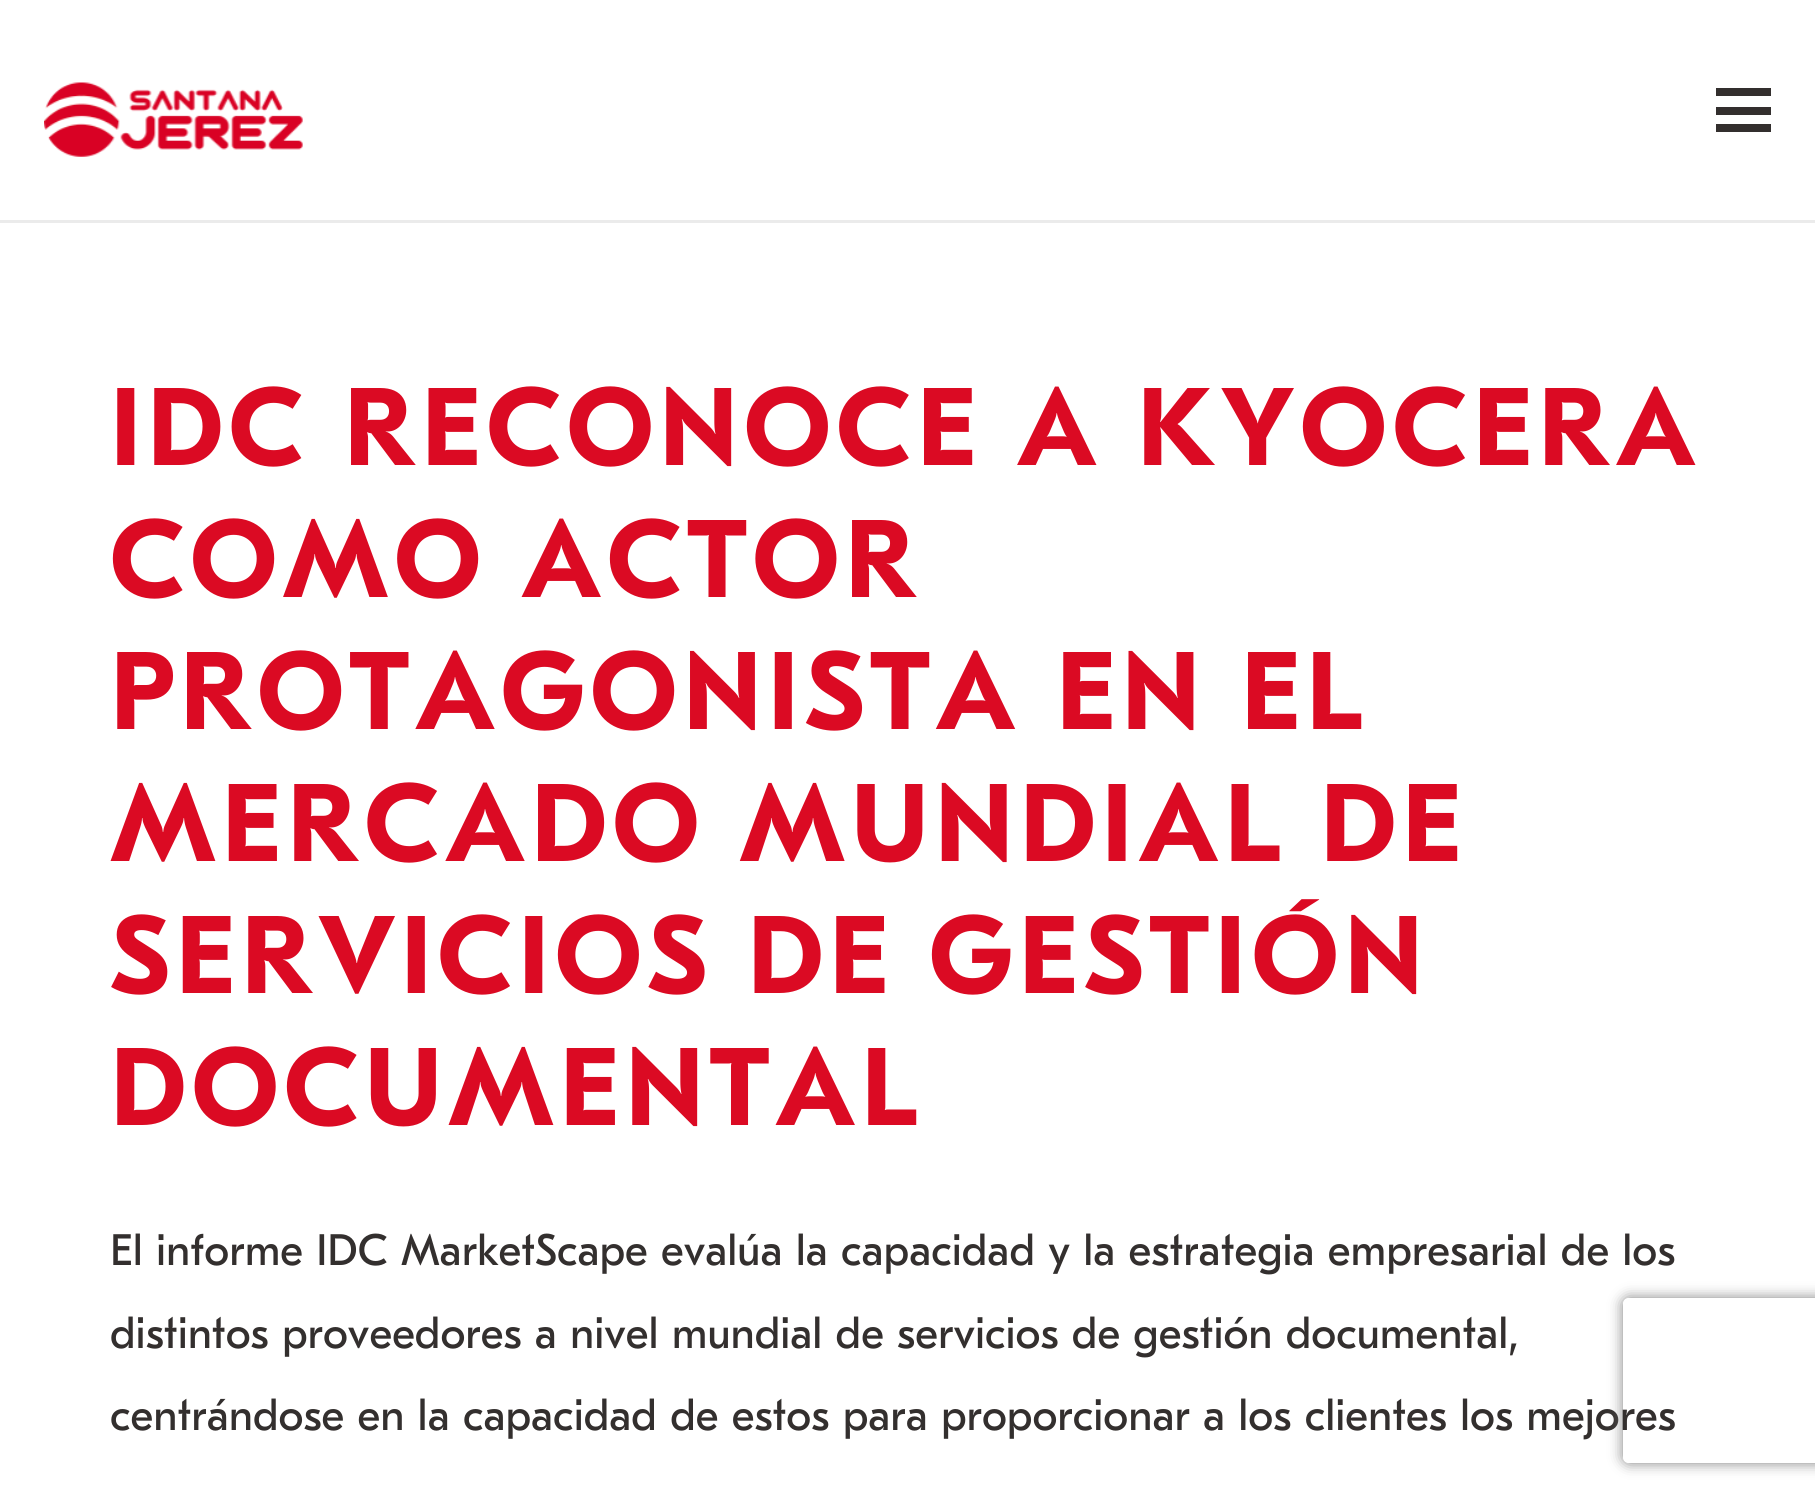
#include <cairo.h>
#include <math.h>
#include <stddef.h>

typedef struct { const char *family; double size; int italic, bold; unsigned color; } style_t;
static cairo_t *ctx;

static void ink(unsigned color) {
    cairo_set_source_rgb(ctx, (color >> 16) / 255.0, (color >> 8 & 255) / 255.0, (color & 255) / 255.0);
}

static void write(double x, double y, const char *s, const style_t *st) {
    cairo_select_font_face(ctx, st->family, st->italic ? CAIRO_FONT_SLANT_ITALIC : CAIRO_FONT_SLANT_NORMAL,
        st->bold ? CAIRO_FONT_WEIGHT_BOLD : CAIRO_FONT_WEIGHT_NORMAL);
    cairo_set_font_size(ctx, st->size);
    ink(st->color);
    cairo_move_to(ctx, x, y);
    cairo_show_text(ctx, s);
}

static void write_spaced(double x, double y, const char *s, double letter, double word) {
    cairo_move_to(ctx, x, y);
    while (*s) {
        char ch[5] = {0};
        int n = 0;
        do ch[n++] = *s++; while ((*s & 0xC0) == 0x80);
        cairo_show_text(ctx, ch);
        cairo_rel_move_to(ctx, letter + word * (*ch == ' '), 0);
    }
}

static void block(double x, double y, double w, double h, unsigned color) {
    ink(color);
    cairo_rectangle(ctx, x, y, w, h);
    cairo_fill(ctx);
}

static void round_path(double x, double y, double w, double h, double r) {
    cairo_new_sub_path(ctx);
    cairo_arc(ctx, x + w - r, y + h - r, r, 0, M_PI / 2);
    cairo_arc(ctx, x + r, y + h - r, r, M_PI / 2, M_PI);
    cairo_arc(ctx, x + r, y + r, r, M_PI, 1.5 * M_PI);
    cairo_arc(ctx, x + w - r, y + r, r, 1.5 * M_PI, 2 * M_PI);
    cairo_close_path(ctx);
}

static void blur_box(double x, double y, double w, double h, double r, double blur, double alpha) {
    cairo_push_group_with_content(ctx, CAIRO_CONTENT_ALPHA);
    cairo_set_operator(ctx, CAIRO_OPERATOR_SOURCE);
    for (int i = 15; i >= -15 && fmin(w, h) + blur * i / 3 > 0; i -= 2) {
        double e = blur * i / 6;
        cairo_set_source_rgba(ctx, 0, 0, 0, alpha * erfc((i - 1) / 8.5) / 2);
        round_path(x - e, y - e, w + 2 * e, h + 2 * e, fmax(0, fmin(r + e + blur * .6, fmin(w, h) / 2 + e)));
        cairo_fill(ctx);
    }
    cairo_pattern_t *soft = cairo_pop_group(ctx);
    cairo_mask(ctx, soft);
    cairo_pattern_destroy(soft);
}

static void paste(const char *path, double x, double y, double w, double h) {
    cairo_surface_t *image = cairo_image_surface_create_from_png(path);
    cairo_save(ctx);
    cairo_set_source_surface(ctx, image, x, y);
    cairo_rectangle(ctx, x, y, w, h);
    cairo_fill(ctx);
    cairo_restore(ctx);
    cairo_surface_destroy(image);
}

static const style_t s1 = {"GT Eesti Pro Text", 44, 0, 0, 0x332f2e};

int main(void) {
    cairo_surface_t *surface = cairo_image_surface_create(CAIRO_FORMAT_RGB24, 1815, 1499);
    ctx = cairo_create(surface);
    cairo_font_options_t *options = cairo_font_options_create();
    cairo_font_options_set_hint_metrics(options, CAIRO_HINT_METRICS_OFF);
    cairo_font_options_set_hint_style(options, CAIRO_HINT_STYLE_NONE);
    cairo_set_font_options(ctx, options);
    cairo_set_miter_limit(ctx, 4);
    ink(0xffffff);
    cairo_paint(ctx);
    block(0, 220, 1815, 3, 0xebebeb);
    paste("pic1.png", 44, 82, 259, 75);
    block(1716, 107, 55, 8, 0x332f2e);
    block(1716, 88, 55, 8, 0x332f2e);
    block(1716, 124, 55, 8, 0x332f2e);
    cairo_select_font_face(ctx, "GT Eesti Pro Text", CAIRO_FONT_SLANT_NORMAL, CAIRO_FONT_WEIGHT_BOLD);
    cairo_set_font_size(ctx, 110);
    ink(0xdb0a23);
    write_spaced(110, 465, "IDC RECONOCE A KYOCERA", 5.5, 0);
    write_spaced(110, 597, "COMO ACTOR", 5.5, 0);
    write_spaced(110, 729, "PROTAGONISTA EN EL", 5.5, 0);
    write_spaced(110, 861, "MERCADO MUNDIAL DE", 5.5, 0);
    write_spaced(110, 993, "SERVICIOS DE GESTIÓN", 5.5, 0);
    write_spaced(110, 1125, "DOCUMENTAL", 5.5, 0);
    write(110, 1265, "El informe IDC MarketScape evalúa la capacidad y la estrategia empresarial de los", &s1);
    write(110, 1348, "distintos proveedores a nivel mundial de servicios de gestión documental,", &s1);
    write(110, 1430, "centrándose en la capacidad de estos para proporcionar a los clientes los mejores", &s1);
    cairo_save(ctx);
    cairo_set_fill_rule(ctx, CAIRO_FILL_RULE_EVEN_ODD);
    cairo_new_path(ctx);
    cairo_move_to(ctx, 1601, 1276);
    cairo_line_to(ctx, 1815, 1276);
    cairo_line_to(ctx, 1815, 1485);
    cairo_line_to(ctx, 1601, 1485);
    cairo_close_path(ctx);
    cairo_move_to(ctx, 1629, 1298);
    cairo_line_to(ctx, 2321, 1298);
    cairo_curve_to(ctx, 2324.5, 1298, 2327, 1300.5, 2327, 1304);
    cairo_line_to(ctx, 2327, 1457);
    cairo_curve_to(ctx, 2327, 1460.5, 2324.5, 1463, 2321, 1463);
    cairo_line_to(ctx, 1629, 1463);
    cairo_curve_to(ctx, 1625.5, 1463, 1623, 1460.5, 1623, 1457);
    cairo_line_to(ctx, 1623, 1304);
    cairo_curve_to(ctx, 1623, 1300.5, 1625.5, 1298, 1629, 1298);
    cairo_close_path(ctx);
    cairo_clip(ctx);
    ink(0x808080);
    blur_box(1623, 1298, 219, 165, 6, 7, 1);
    cairo_restore(ctx);
    cairo_surface_write_to_png(surface, "screenshot.png");
    cairo_font_options_destroy(options);
    cairo_destroy(ctx);
    cairo_surface_destroy(surface);
    return 0;
}
